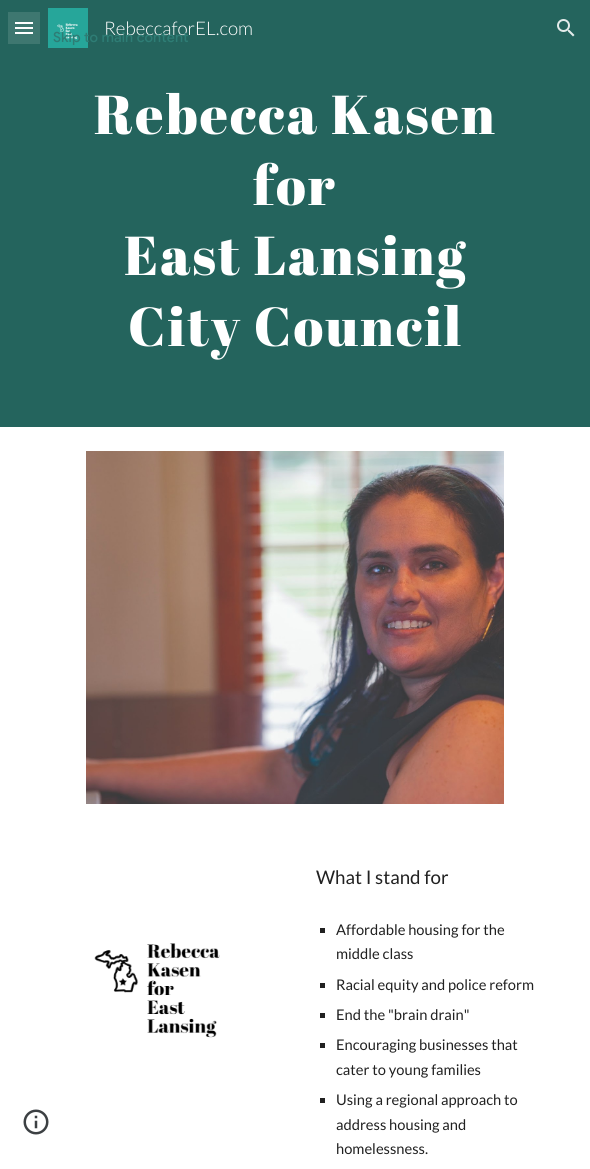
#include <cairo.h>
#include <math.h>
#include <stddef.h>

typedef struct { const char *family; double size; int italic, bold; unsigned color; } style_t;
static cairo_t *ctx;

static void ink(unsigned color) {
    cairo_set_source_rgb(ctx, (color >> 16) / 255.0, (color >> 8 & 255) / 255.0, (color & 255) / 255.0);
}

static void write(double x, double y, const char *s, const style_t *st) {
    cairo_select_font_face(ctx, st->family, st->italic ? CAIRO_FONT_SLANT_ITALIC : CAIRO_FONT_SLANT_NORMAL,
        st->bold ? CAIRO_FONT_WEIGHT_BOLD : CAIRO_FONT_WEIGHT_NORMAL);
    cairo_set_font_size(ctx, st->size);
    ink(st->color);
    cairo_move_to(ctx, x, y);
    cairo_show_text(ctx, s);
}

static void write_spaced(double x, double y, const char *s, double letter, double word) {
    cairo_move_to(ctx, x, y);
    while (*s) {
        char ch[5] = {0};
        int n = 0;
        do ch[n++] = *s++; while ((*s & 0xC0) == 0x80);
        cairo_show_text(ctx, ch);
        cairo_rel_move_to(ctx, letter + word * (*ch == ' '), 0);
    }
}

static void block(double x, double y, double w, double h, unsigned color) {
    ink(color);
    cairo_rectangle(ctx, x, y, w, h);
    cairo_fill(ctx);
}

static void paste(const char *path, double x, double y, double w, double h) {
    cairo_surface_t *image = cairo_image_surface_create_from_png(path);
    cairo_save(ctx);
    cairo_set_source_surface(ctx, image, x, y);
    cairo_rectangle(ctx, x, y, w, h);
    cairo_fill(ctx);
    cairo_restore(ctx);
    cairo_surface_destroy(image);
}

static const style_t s1 = {"Lato Light", 18.75, 0, 0, 0xffffff};
static const style_t s2 = {"Lato", 18.75, 0, 0, 0x212121};
static const style_t s3 = {"Lato", 14.7, 0, 0, 0x212121};

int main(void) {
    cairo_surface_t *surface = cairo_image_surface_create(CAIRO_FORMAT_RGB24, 590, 1169);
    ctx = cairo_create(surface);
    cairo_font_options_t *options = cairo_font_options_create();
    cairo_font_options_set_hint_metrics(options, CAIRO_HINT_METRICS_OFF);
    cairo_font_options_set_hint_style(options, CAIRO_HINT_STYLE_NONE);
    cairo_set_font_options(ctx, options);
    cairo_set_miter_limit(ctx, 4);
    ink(0xffffff);
    cairo_paint(ctx);
    block(0, 0, 590, 427, 0x24645d);
    block(8, 12, 32, 32, 0x3e7770);
    block(15, 22, 18, 2, 0xffffff);
    block(15, 27, 18, 2, 0xffffff);
    block(15, 32, 18, 2, 0xffffff);
    paste("pic1.png", 48, 8, 40, 40);
    write(104, 35, "RebeccaforEL.com", &s1);
    paste("pic2.png", 557, 19, 18, 18);
    paste("pic3.png", 23, 1109, 26, 26);
    cairo_select_font_face(ctx, "Abril Fatface", CAIRO_FONT_SLANT_NORMAL, CAIRO_FONT_WEIGHT_NORMAL);
    cairo_set_font_size(ctx, 54.75);
    write_spaced(94, 134, "Rebecca Kasen", 2, 0);
    write_spaced(253, 205, "for", 2, 0);
    write_spaced(124, 275, "East Lansing", 2, 0);
    write_spaced(128, 346, "City Council", 2, 0);
    paste("pic4.png", 86, 451, 418, 353);
    paste("pic5.png", 94, 943, 126, 95);
    write(316, 884, "What I stand for", &s2);
    block(320, 928, 5, 5, 0x212121);
    write(336, 935, "Affordable housing for the", &s3);
    write(336, 959, "middle class", &s3);
    block(320, 983, 5, 5, 0x212121);
    write(336, 990, "Racial equity and police reform", &s3);
    block(320, 1013, 5, 5, 0x212121);
    write(336, 1020, "End the \"brain drain\"", &s3);
    block(320, 1043, 5, 5, 0x212121);
    write(336, 1050, "Encouraging businesses that", &s3);
    write(336, 1075, "cater to young families", &s3);
    block(320, 1098, 5, 5, 0x212121);
    write(336, 1105, "Using a regional approach to", &s3);
    write(336, 1130, "address housing and", &s3);
    write(336, 1154, "homelessness.", &s3);
    cairo_select_font_face(ctx, "Google Sans Medium", CAIRO_FONT_SLANT_NORMAL, CAIRO_FONT_WEIGHT_NORMAL);
    cairo_set_font_size(ctx, 14);
    ink(0x2e7d75);
    write_spaced(53, 42, "Skip to main content", 0.1, 0);
    cairo_surface_write_to_png(surface, "screenshot.png");
    cairo_font_options_destroy(options);
    cairo_destroy(ctx);
    cairo_surface_destroy(surface);
    return 0;
}
